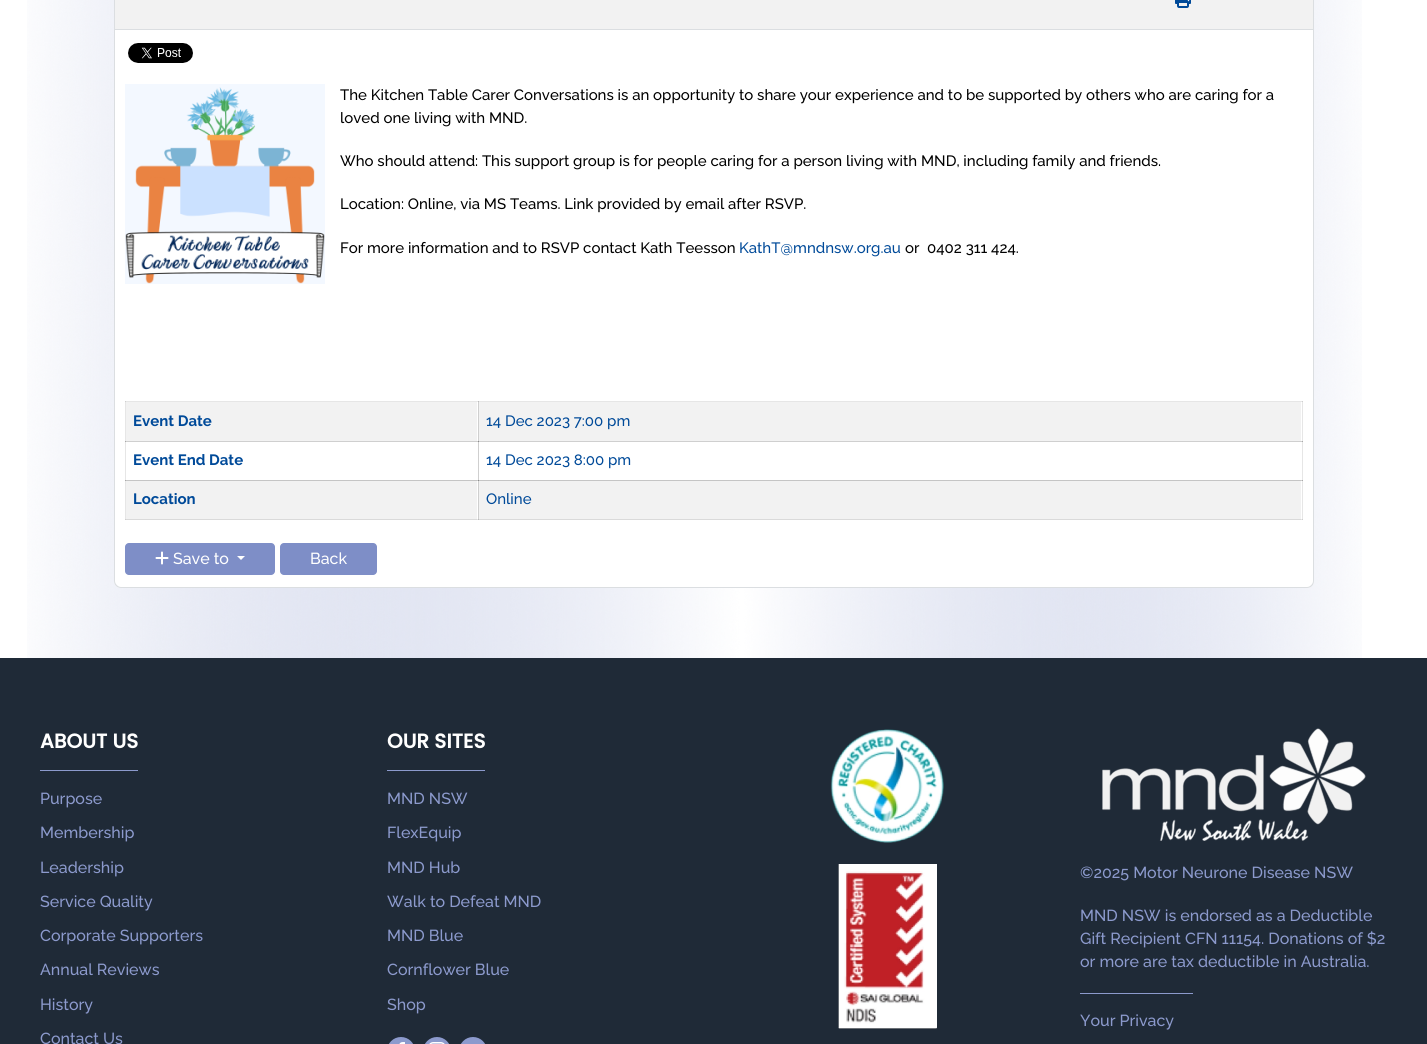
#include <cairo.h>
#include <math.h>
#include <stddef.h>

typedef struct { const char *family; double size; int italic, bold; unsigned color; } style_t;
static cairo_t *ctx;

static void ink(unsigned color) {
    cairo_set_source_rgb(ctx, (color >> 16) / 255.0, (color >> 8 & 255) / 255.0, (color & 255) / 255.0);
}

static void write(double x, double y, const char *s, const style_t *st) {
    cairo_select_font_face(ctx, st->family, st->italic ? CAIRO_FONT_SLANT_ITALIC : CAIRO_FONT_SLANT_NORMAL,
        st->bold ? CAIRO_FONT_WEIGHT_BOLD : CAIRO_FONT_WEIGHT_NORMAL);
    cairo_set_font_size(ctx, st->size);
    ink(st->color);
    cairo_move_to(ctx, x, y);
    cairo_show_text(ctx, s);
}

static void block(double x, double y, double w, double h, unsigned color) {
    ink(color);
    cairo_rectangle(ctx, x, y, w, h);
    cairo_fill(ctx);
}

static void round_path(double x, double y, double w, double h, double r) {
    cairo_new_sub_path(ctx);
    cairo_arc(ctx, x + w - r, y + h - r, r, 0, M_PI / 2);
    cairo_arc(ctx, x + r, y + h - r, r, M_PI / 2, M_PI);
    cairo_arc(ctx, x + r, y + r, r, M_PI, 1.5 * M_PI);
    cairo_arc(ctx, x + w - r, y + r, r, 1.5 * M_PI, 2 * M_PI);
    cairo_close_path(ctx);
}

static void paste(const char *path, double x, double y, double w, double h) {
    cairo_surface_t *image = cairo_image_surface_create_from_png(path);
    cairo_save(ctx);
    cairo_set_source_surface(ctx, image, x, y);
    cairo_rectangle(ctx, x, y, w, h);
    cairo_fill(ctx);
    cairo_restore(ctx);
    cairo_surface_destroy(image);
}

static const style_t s1 = {"Raleway Thin", 15, 0, 0, 0x000000};
static const style_t s2 = {"Raleway Thin", 15, 0, 0, 0x004a99};
static const style_t s3 = {"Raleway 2 Thin", 15, 0, 0, 0x004a99};
static const style_t s4 = {"Raleway Thin", 16, 0, 0, 0xffffff};
static const style_t s5 = {"Poppins", 20, 0, 1, 0xffffff};
static const style_t s6 = {"Raleway Thin", 16, 0, 0, 0x8c9acd};

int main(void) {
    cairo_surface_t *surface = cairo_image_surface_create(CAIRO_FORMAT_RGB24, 1427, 1044);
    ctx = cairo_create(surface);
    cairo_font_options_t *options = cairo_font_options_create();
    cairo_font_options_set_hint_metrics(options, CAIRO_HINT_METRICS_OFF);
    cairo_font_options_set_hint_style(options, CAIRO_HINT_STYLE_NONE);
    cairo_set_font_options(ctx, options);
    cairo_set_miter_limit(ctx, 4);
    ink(0xffffff);
    cairo_paint(ctx);
    paste("pic1.png", 27, 0, 1335, 658);
    ink(0xf2f2f2);
    cairo_rectangle(ctx, 114.5, -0.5, 1199, 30);
    cairo_fill_preserve(ctx);
    ink(0xdbdee1);
    cairo_set_line_width(ctx, 1);
    cairo_stroke(ctx);
    paste("pic2.png", 1175, 0, 16, 8);
    ink(0xffffff);
    cairo_new_path(ctx);
    cairo_move_to(ctx, 114, 30);
    cairo_line_to(ctx, 1314, 30);
    cairo_line_to(ctx, 1314, 581);
    cairo_curve_to(ctx, 1314, 585, 1311, 588, 1307, 588);
    cairo_line_to(ctx, 121, 588);
    cairo_curve_to(ctx, 117, 588, 114, 585, 114, 581);
    cairo_close_path(ctx);
    cairo_fill(ctx);
    ink(0xdbdee1);
    cairo_set_fill_rule(ctx, CAIRO_FILL_RULE_EVEN_ODD);
    cairo_new_path(ctx);
    cairo_move_to(ctx, 114, 30);
    cairo_line_to(ctx, 1314, 30);
    cairo_line_to(ctx, 1314, 581);
    cairo_curve_to(ctx, 1314, 585, 1311, 588, 1307, 588);
    cairo_line_to(ctx, 121, 588);
    cairo_curve_to(ctx, 117, 588, 114, 585, 114, 581);
    cairo_close_path(ctx);
    cairo_move_to(ctx, 115, 30);
    cairo_line_to(ctx, 1313, 30);
    cairo_line_to(ctx, 1313, 581);
    cairo_curve_to(ctx, 1313, 584, 1310, 587, 1307, 587);
    cairo_line_to(ctx, 121, 587);
    cairo_curve_to(ctx, 118, 587, 115, 584, 115, 581);
    cairo_close_path(ctx);
    cairo_fill(ctx);
    paste("pic3.png", 128, 43, 65, 20);
    paste("pic4.png", 125, 84, 200, 200);
    write(340, 100, "The Kitchen Table Carer Conversations is an opportunity to share your experience and to be supported by others who are caring for a", &s1);
    write(340, 123, "loved one living with MND.", &s1);
    write(340, 166, "Who should attend: This support group is for people caring for a person living with MND, including family and friends.", &s1);
    write(340, 209, "Location: Online, via MS Teams. Link provided by email after RSVP.", &s1);
    write(340, 253, "For more information and to RSVP contact Kath Teesson", &s1);
    write(739, 253, "KathT@mndnsw.org.au", &s2);
    write(905, 253, "or  0402 311 424.", &s1);
    block(125, 401, 1178, 1, 0xe6e6e6);
    block(125, 441, 1178, 1, 0xcfcfcf);
    block(126, 402, 351, 39, 0xf2f2f2);
    block(126, 480, 351, 40, 0xf2f2f2);
    block(479, 480, 822, 40, 0xf2f2f2);
    cairo_set_source_rgba(ctx, 0, 0, 0, 0.1);
    cairo_rectangle(ctx, 125, 480, 1178, 1);
    cairo_fill(ctx);
    cairo_rectangle(ctx, 125, 480, 1178, 1);
    cairo_fill(ctx);
    cairo_rectangle(ctx, 125, 519, 1178, 1);
    cairo_fill(ctx);
    cairo_rectangle(ctx, 478, 480, 1, 40);
    cairo_fill(ctx);
    cairo_rectangle(ctx, 478, 480, 1, 40);
    cairo_fill(ctx);
    cairo_rectangle(ctx, 478, 441, 1, 40);
    cairo_fill(ctx);
    cairo_rectangle(ctx, 478, 441, 1, 40);
    cairo_fill(ctx);
    cairo_rectangle(ctx, 478, 401, 1, 41);
    cairo_fill(ctx);
    cairo_rectangle(ctx, 478, 401, 1, 41);
    cairo_fill(ctx);
    cairo_rectangle(ctx, 125, 480, 1, 40);
    cairo_fill(ctx);
    cairo_rectangle(ctx, 125, 441, 1, 40);
    cairo_fill(ctx);
    cairo_rectangle(ctx, 125, 401, 1, 41);
    cairo_fill(ctx);
    write(133, 426, "Event Date", &s3);
    block(479, 402, 822, 39, 0xf2f2f2);
    cairo_set_source_rgba(ctx, 0, 0, 0, 0.1);
    cairo_rectangle(ctx, 1302, 480, 1, 40);
    cairo_fill(ctx);
    cairo_rectangle(ctx, 1302, 441, 1, 40);
    cairo_fill(ctx);
    cairo_rectangle(ctx, 1302, 401, 1, 41);
    cairo_fill(ctx);
    write(486, 426, "14 Dec 2023 7:00 pm", &s2);
    write(133, 465, "Event End Date", &s3);
    write(486, 465, "14 Dec 2023 8:00 pm", &s2);
    write(133, 504, "Location", &s3);
    write(486, 504, "Online", &s2);
    ink(0x7e8ec7);
    round_path(125, 543, 150, 32, 4);
    cairo_fill(ctx);
    paste("pic5.png", 155, 551, 14, 14);
    write(173, 564, "Save to", &s4);
    cairo_set_fill_rule(ctx, CAIRO_FILL_RULE_WINDING);
    cairo_new_path(ctx);
    cairo_move_to(ctx, 237, 556);
    cairo_line_to(ctx, 245, 556);
    cairo_line_to(ctx, 241, 560);
    cairo_close_path(ctx);
    cairo_fill(ctx);
    ink(0x7e8ec7);
    round_path(280, 543, 97, 32, 4);
    cairo_fill(ctx);
    write(310, 564, "Back", &s4);
    block(0, 658, 1427, 386, 0x1f2a37);
    block(40, 770, 98, 1, 0x8c9acd);
    write(40, 748, "ABOUT US", &s5);
    write(40, 804, "Purpose", &s6);
    write(40, 838, "Membership", &s6);
    write(40, 873, "Leadership", &s6);
    write(40, 907, "Service Quality", &s6);
    write(40, 941, "Corporate Supporters", &s6);
    write(40, 975, "Annual Reviews", &s6);
    write(40, 1010, "History", &s6);
    write(40, 1044, "Contact Us", &s6);
    block(387, 770, 98, 1, 0x8c9acd);
    write(387, 748, "OUR SITES", &s5);
    write(387, 804, "MND NSW", &s6);
    write(387, 838, "FlexEquip", &s6);
    write(387, 873, "MND Hub", &s6);
    write(387, 907, "Walk to Defeat MND", &s6);
    write(387, 941, "MND Blue", &s6);
    write(387, 975, "Cornflower Blue", &s6);
    write(387, 1010, "Shop", &s6);
    round_path(387, 1037, 28, 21, 14);
    cairo_fill(ctx);
    paste("pic6.png", 399, 1042, 6, 2);
    round_path(423, 1037, 28, 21, 14);
    cairo_fill(ctx);
    paste("pic7.png", 429, 1042, 16, 2);
    round_path(459, 1037, 28, 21, 14);
    cairo_fill(ctx);
    paste("pic8.png", 830, 729, 114, 114);
    paste("pic9.png", 838, 864, 99, 165);
    paste("pic10.png", 1102, 728, 264, 113);
    write(1080, 878, "©2025 Motor Neurone Disease NSW", &s6);
    write(1080, 921, "MND NSW is endorsed as a Deductible", &s6);
    write(1080, 944, "Gift Recipient CFN 11154. Donations of $2", &s6);
    write(1080, 967, "or more are tax deductible in Australia.", &s6);
    block(1080, 993, 113, 1, 0x8c9acd);
    write(1080, 1026, "Your Privacy", &s6);
    cairo_surface_write_to_png(surface, "screenshot.png");
    cairo_font_options_destroy(options);
    cairo_destroy(ctx);
    cairo_surface_destroy(surface);
    return 0;
}
